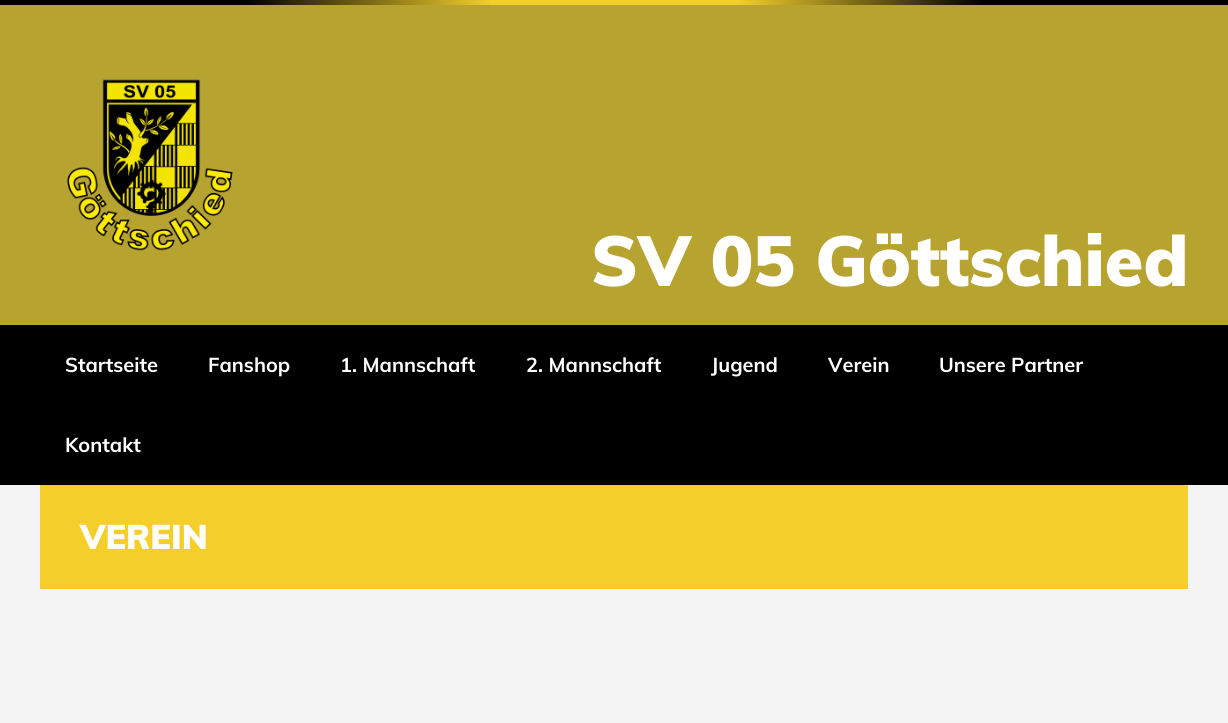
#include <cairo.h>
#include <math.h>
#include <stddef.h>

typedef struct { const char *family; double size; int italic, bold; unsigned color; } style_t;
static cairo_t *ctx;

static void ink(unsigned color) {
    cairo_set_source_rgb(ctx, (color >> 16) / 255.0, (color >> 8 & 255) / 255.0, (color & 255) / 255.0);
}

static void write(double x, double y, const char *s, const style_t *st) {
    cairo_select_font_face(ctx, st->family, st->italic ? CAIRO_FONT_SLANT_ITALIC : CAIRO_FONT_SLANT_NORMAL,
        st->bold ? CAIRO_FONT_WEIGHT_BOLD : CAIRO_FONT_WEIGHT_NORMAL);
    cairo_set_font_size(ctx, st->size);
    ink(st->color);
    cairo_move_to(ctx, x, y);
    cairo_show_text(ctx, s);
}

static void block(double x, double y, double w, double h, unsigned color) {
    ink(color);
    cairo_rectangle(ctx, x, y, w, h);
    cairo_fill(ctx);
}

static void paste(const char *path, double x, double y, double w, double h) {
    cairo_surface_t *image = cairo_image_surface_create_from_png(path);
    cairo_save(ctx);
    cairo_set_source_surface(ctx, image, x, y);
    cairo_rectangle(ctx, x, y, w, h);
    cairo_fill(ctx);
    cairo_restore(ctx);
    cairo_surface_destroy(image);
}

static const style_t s1 = {"Muli Black", 70, 0, 0, 0xffffff};
static const style_t s2 = {"Muli", 20, 0, 1, 0xffffff};
static const style_t s3 = {"Muli Black", 34, 0, 0, 0xffffff};

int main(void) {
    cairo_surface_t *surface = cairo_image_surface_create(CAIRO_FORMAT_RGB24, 1228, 723);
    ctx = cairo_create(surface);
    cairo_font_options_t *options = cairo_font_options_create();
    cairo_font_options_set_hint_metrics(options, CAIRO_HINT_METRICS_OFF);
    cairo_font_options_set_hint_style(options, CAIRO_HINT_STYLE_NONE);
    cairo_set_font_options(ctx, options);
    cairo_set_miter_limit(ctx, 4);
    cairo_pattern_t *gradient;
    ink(0xf4f4f4);
    cairo_paint(ctx);
    block(0, 5, 1228, 320, 0xb7a330);
    gradient = cairo_pattern_create_linear(0, 2.5, 1228, 2.5);
    cairo_pattern_add_color_stop_rgba(gradient, 0, 0, 0, 0, 1);
    cairo_pattern_add_color_stop_rgba(gradient, 0.2, 0, 0, 0, 1);
    cairo_pattern_add_color_stop_rgba(gradient, 0.4, 0.957, 0.812, 0.173, 1);
    cairo_pattern_add_color_stop_rgba(gradient, 0.6, 0.957, 0.812, 0.173, 1);
    cairo_pattern_add_color_stop_rgba(gradient, 0.8, 0, 0, 0, 1);
    cairo_pattern_add_color_stop_rgba(gradient, 1, 0, 0, 0, 1);
    cairo_set_source(ctx, gradient);
    cairo_pattern_destroy(gradient);
    cairo_rectangle(ctx, 0, 0, 1228, 5);
    cairo_fill(ctx);
    paste("pic1.png", 67, 79, 166, 172);
    write(591, 286, "SV 05 Göttschied", &s1);
    block(0, 325, 1228, 160, 0x000000);
    write(65, 372, "Startseite", &s2);
    write(208, 372, "Fanshop", &s2);
    write(340, 372, "1. Mannschaft", &s2);
    write(526, 372, "2. Mannschaft", &s2);
    write(711, 372, "Jugend", &s2);
    write(828, 372, "Verein", &s2);
    write(939, 372, "Unsere Partner", &s2);
    write(65, 452, "Kontakt", &s2);
    block(40, 485, 1148, 104, 0xf4cf2c);
    write(80, 549, "VEREIN", &s3);
    cairo_surface_write_to_png(surface, "screenshot.png");
    cairo_font_options_destroy(options);
    cairo_destroy(ctx);
    cairo_surface_destroy(surface);
    return 0;
}
